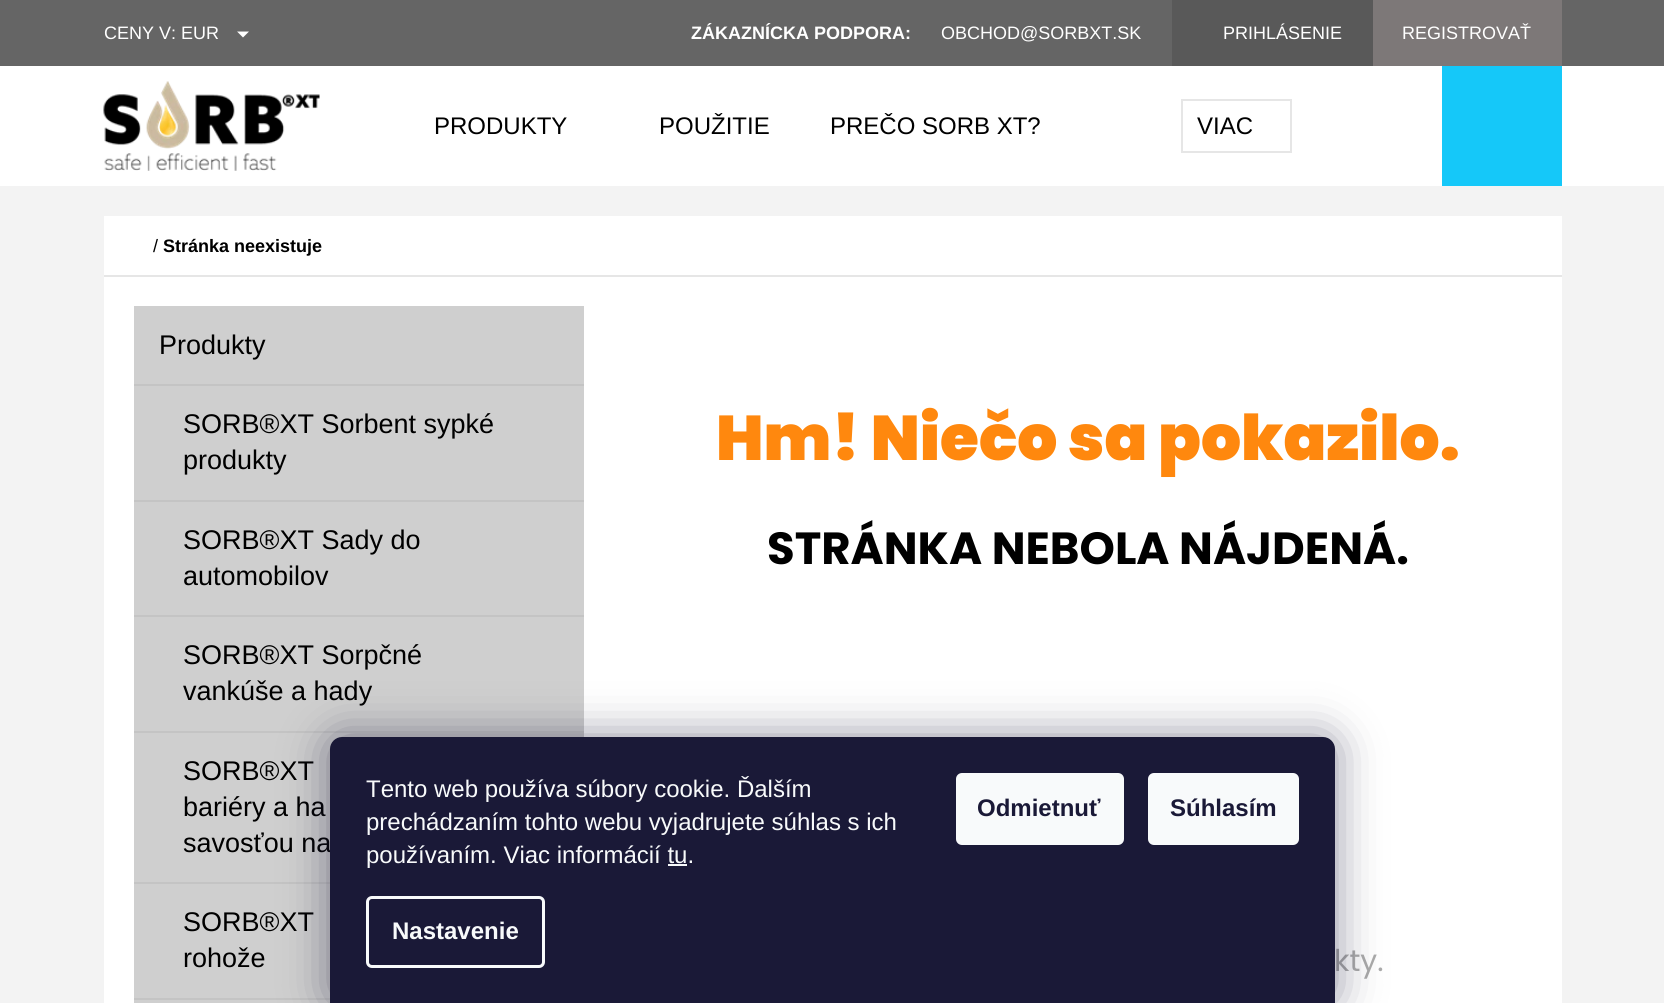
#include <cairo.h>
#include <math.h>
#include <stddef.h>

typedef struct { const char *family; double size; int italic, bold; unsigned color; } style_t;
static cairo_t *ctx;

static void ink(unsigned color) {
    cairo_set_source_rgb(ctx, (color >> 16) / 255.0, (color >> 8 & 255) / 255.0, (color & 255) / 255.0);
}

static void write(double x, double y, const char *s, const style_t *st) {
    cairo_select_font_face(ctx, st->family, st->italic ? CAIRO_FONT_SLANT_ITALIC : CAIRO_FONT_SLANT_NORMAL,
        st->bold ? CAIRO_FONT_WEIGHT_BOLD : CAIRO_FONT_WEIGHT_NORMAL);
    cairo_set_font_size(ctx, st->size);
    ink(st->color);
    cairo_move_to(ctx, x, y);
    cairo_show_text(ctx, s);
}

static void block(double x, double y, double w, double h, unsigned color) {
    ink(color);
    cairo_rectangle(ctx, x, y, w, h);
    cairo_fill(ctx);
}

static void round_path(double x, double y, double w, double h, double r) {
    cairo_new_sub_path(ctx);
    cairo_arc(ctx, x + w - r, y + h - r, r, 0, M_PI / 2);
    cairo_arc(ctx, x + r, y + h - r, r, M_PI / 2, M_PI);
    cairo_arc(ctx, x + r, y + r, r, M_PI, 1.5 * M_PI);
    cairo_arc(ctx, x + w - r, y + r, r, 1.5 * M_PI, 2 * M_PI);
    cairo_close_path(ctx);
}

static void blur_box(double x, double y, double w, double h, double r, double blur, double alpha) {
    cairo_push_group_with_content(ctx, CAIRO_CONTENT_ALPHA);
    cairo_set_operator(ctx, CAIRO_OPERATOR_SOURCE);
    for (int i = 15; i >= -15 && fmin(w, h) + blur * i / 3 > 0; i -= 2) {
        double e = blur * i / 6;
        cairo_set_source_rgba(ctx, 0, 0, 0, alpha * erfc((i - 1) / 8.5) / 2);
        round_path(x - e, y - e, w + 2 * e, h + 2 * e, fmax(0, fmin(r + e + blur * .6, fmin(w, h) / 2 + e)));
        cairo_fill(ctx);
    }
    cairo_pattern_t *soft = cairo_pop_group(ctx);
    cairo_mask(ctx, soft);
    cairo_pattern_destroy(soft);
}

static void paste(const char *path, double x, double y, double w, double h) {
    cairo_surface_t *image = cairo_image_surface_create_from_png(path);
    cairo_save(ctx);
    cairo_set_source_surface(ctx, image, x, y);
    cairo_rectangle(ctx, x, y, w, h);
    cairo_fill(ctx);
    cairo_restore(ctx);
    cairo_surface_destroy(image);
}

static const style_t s1 = {"Liberation Sans", 18, 0, 0, 0xffffff};
static const style_t s2 = {"Liberation Sans", 18, 0, 1, 0xffffff};
static const style_t s3 = {"Liberation Sans", 24, 0, 0, 0x000000};
static const style_t s4 = {"Liberation Sans", 18, 0, 0, 0x000000};
static const style_t s5 = {"Liberation Sans", 18, 0, 1, 0x000000};
static const style_t s6 = {"Liberation Sans", 27, 0, 0, 0x000000};
static const style_t s7 = {"Poppins Black", 63, 0, 0, 0xff880e};
static const style_t s8 = {"Poppins", 45, 0, 1, 0x000000};
static const style_t s9 = {"Poppins", 30, 0, 0, 0xaaaaaa};
static const style_t s10 = {"Liberation Sans", 24, 0, 0, 0xf8fafb};
static const style_t s11 = {"Liberation Sans", 24, 0, 1, 0xf8fafb};
static const style_t s12 = {"Liberation Sans", 24, 0, 1, 0x1a1937};

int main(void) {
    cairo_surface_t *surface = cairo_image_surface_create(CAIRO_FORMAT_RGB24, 1664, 1003);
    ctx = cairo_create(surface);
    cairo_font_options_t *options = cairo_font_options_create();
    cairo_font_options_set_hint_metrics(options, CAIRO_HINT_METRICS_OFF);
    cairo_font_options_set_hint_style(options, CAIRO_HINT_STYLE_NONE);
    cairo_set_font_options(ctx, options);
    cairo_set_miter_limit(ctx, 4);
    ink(0xf3f3f3);
    cairo_paint(ctx);
    block(0, 0, 1664, 66, 0x656565);
    write(104, 39, "CENY V: EUR", &s1);
    cairo_new_path(ctx);
    cairo_move_to(ctx, 237, 31.5);
    cairo_line_to(ctx, 249, 31.5);
    cairo_line_to(ctx, 243, 37.5);
    cairo_close_path(ctx);
    cairo_fill(ctx);
    write(691, 39, "ZÁKAZNÍCKA PODPORA:", &s2);
    write(941, 39, "OBCHOD@SORBXT.SK", &s1);
    block(1172, 0, 201, 66, 0x595959);
    write(1223, 39, "PRIHLÁSENIE", &s1);
    block(1373, 0, 189, 66, 0x7d7878);
    write(1402, 39, "REGISTROVAŤ", &s1);
    block(0, 66, 1664, 120, 0xffffff);
    paste("pic1.png", 103, 81, 217, 90);
    write(434, 134, "PRODUKTY", &s3);
    write(659, 134, "POUŽITIE", &s3);
    write(830, 134, "PREČO SORB XT?", &s3);
    cairo_rectangle(ctx, 1182, 100, 109, 52);
    ink(0xe6e6e6);
    cairo_stroke(ctx);
    write(1197, 134, "VIAC", &s3);
    block(1442, 66, 120, 120, 0x15c8f9);
    block(104, 216, 1458, 787, 0xffffff);
    block(104, 275, 1458, 2, 0xe6e6e6);
    write(153, 252, "/", &s4);
    write(163, 252, "Stránka neexistuje", &s5);
    block(134, 306, 450, 697, 0xcfcfcf);
    block(134, 384, 450, 2, 0xc4c4c4);
    write(159, 354, "Produkty", &s6);
    block(134, 500, 450, 2, 0xc4c4c4);
    write(183, 433, "SORB®XT Sorbent sypké", &s6);
    write(183, 469, "produkty", &s6);
    block(134, 615, 450, 2, 0xc4c4c4);
    write(183, 549, "SORB®XT Sady do", &s6);
    write(183, 585, "automobilov", &s6);
    block(134, 731, 450, 2, 0xc4c4c4);
    write(183, 664, "SORB®XT Sorpčné", &s6);
    write(183, 700, "vankúše a hady", &s6);
    block(134, 882, 196, 2, 0xc4c4c4);
    write(183, 780, "SORB®XT", &s6);
    write(183, 816, "bariéry a ha", &s6);
    write(183, 852, "savosťou na", &s6);
    block(134, 998, 196, 2, 0xc4c4c4);
    write(183, 931, "SORB®XT", &s6);
    write(183, 967, "rohože", &s6);
    write(716, 460, "Hm! Niečo sa pokazilo.", &s7);
    write(767, 564, "STRÁNKA NEBOLA NÁJDENÁ.", &s8);
    write(1334, 971, "kty.", &s9);
    ink(0x1b1939);
    blur_box(330, 737, 1005, 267, 12, 22.5, 0.5);
    ink(0x1a1937);
    cairo_new_path(ctx);
    cairo_move_to(ctx, 342, 737);
    cairo_line_to(ctx, 1323, 737);
    cairo_curve_to(ctx, 1329.5, 737, 1335, 742.5, 1335, 749);
    cairo_line_to(ctx, 1335, 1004);
    cairo_line_to(ctx, 330, 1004);
    cairo_line_to(ctx, 330, 749);
    cairo_curve_to(ctx, 330, 742.5, 335.5, 737, 342, 737);
    cairo_close_path(ctx);
    cairo_fill(ctx);
    write(366, 797, "Tento web používa súbory cookie. Ďalším", &s10);
    write(366, 830, "prechádzaním tohto webu vyjadrujete súhlas s ich", &s10);
    write(366, 863, "používaním. Viac informácií tu.", &s10);
    block(668, 864, 19, 2, 0xf8fafb);
    round_path(367.5, 897.5, 176, 69, 4.5);
    cairo_set_line_width(ctx, 3);
    cairo_stroke(ctx);
    write(392, 939, "Nastavenie", &s11);
    round_path(956, 773, 168, 72, 6);
    cairo_fill(ctx);
    write(977, 816, "Odmietnuť", &s12);
    ink(0xf8fafb);
    round_path(1148, 773, 151, 72, 6);
    cairo_fill(ctx);
    write(1170, 816, "Súhlasím", &s12);
    cairo_surface_write_to_png(surface, "screenshot.png");
    cairo_font_options_destroy(options);
    cairo_destroy(ctx);
    cairo_surface_destroy(surface);
    return 0;
}
